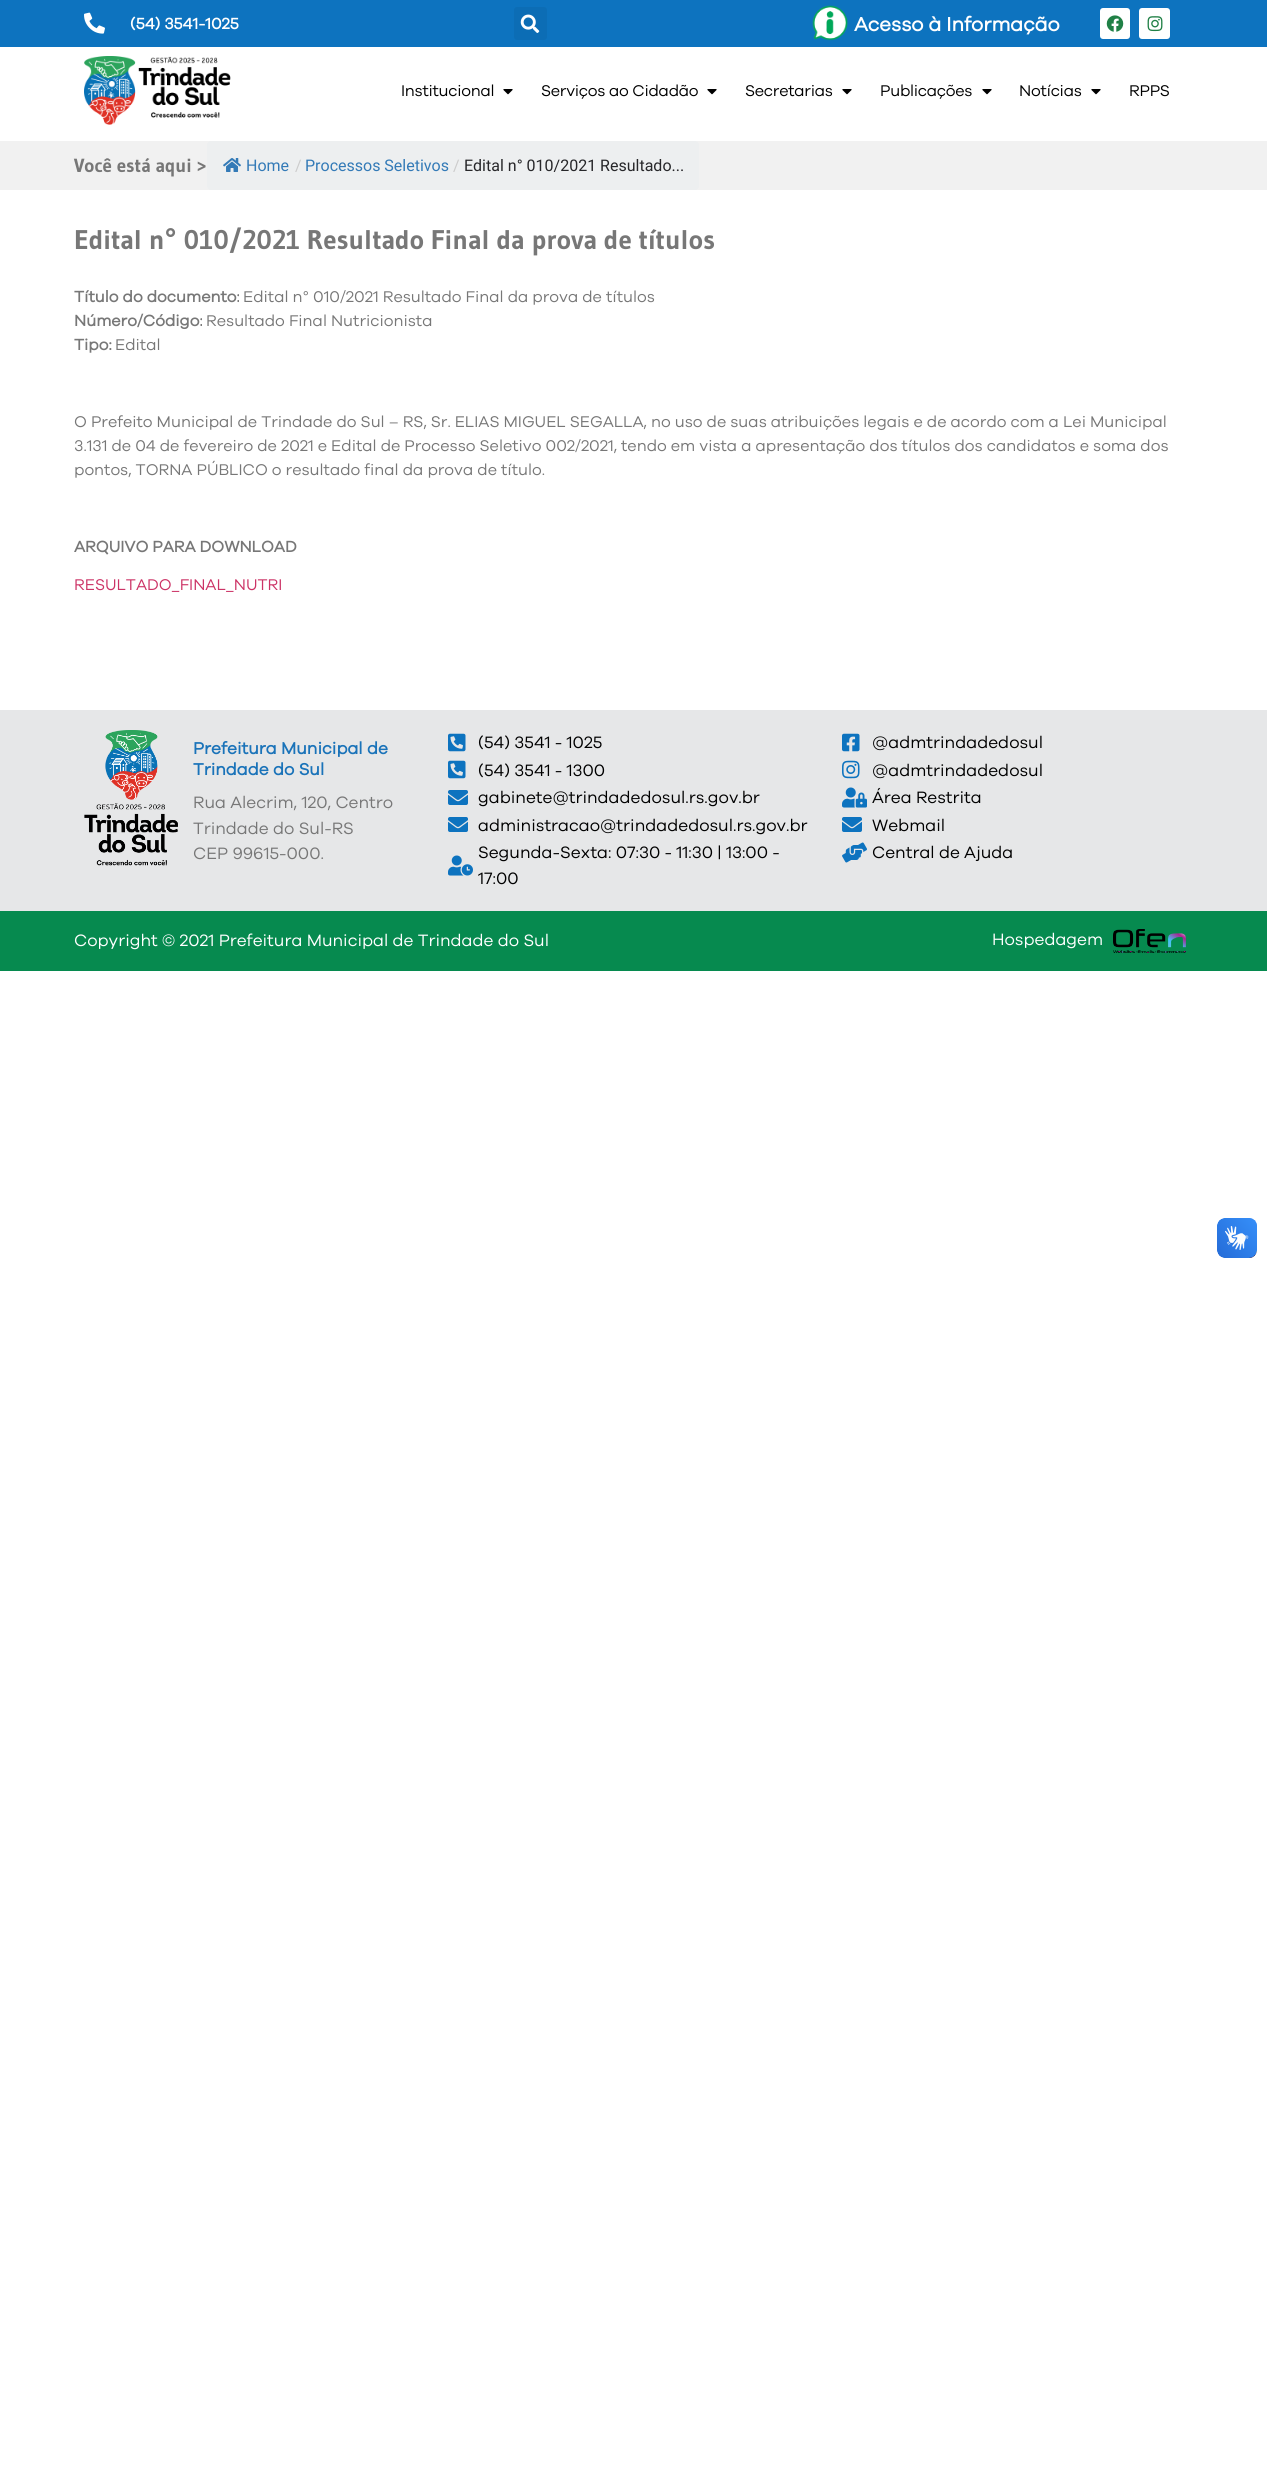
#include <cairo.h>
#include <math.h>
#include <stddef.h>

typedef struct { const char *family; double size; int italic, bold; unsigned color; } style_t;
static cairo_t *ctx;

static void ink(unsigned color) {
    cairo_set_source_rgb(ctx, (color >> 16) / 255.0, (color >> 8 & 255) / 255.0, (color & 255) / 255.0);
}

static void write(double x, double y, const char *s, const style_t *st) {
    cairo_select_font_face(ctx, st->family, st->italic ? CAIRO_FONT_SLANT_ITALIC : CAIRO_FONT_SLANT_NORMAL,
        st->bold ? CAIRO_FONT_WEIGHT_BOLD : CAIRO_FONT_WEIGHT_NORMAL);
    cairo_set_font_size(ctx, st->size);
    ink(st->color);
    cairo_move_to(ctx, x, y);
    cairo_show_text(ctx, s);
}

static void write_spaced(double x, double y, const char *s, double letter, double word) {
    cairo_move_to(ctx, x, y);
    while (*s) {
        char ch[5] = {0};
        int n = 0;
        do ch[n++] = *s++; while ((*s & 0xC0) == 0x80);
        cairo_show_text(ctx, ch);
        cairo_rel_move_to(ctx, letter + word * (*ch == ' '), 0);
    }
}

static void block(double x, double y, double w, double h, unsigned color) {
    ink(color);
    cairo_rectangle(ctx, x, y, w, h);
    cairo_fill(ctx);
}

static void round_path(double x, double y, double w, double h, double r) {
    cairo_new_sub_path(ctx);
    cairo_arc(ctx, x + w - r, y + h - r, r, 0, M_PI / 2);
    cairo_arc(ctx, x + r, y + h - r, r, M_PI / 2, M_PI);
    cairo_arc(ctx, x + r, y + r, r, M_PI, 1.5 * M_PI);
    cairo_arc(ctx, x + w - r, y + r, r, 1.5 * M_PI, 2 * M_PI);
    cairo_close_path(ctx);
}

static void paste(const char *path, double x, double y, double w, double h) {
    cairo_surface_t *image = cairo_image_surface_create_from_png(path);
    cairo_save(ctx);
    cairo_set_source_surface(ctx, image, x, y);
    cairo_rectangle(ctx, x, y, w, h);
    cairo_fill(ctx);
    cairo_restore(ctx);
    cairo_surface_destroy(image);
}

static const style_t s1 = {"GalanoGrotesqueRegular", 16, 0, 1, 0xffffff};
static const style_t s2 = {"GalanoGrotesqueRegular", 20, 0, 1, 0xffffff};
static const style_t s3 = {"Gudea", 19, 0, 1, 0x777777};
static const style_t s4 = {"Roboto", 16, 0, 0, 0x337ab7};
static const style_t s5 = {"Roboto", 16, 0, 0, 0xcccccc};
static const style_t s6 = {"Roboto", 16, 0, 0, 0x27272a};
static const style_t s7 = {"Gudea", 27, 0, 1, 0x777777};
static const style_t s8 = {"GalanoGrotesqueRegular", 16, 0, 1, 0x777777};
static const style_t s9 = {"GalanoGrotesqueRegular", 16, 0, 0, 0x777777};
static const style_t s10 = {"GalanoGrotesqueRegular", 16, 0, 0, 0xcc3366};
static const style_t s11 = {"GalanoGrotesqueRegular", 17, 0, 1, 0x1a73b9};
static const style_t s12 = {"GalanoGrotesqueRegular", 17, 0, 0, 0x777777};
static const style_t s13 = {"GalanoGrotesqueRegular", 17, 0, 0, 0x000000};
static const style_t s14 = {"GalanoGrotesqueRegular", 17, 0, 0, 0xffffff};

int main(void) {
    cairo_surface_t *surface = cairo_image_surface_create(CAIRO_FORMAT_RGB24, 1267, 2475);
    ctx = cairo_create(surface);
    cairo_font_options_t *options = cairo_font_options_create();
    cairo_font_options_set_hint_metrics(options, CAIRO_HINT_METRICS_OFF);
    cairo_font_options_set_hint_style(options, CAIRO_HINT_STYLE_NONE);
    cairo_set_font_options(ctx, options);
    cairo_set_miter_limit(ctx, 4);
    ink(0xffffff);
    cairo_paint(ctx);
    block(0, 0, 1267, 47, 0x0d73bf);
    paste("pic1.png", 84, 12, 21, 22);
    write(130, 29, "(54) 3541-1025", &s1);
    ink(0x0c6db5);
    round_path(514, 7, 33, 33, 3);
    cairo_fill(ctx);
    paste("pic2.png", 520, 14, 20, 19);
    paste("pic3.png", 812, 5, 36, 36);
    write(854, 31, "Acesso à Informação", &s2);
    round_path(1100, 8, 30, 31, 3);
    cairo_fill(ctx);
    paste("pic4.png", 1106, 15, 18, 17);
    round_path(1139, 8, 31, 31, 3);
    cairo_fill(ctx);
    paste("pic5.png", 1147, 16, 16, 16);
    paste("pic6.png", 84, 56, 147, 69);
    cairo_select_font_face(ctx, "GalanoGrotesqueRegular", CAIRO_FONT_SLANT_NORMAL, CAIRO_FONT_WEIGHT_NORMAL);
    cairo_set_font_size(ctx, 16);
    ink(0x000000);
    write_spaced(401, 96, "Institucional", -0.25, 0);
    paste("pic7.png", 503, 89, 10, 6);
    write_spaced(541, 96, "Serviços ao Cidadão", -0.25, 0);
    paste("pic7.png", 707, 89, 10, 6);
    write_spaced(745, 96, "Secretarias", -0.25, 0);
    paste("pic7.png", 842, 89, 10, 6);
    write_spaced(880, 96, "Publicações", -0.25, 0);
    paste("pic7.png", 982, 89, 10, 6);
    write_spaced(1019, 96, "Notícias", -0.25, 0);
    paste("pic7.png", 1091, 89, 10, 6);
    write_spaced(1129, 96, "RPPS", -0.25, 0);
    block(0, 141, 1267, 49, 0xf1f1f1);
    write(74, 172, "Você está aqui >", &s3);
    ink(0xedeff0);
    round_path(207, 141, 492, 49, 4);
    cairo_fill(ctx);
    paste("pic8.png", 223, 158, 18, 14);
    write(246, 171, "Home", &s4);
    write(295, 171, "/", &s5);
    write(305, 171, "Processos Seletivos", &s4);
    write(453, 171, "/", &s5);
    write(464, 171, "Edital n° 010/2021 Resultado...", &s6);
    write(74, 249, "Edital n° 010/2021 Resultado Final da prova de títulos", &s7);
    write(74, 302, "Título do documento:", &s8);
    write(243, 302, "Edital n° 010/2021 Resultado Final da prova de títulos", &s9);
    write(74, 326, "Número/Código:", &s8);
    write(206, 326, "Resultado Final Nutricionista", &s9);
    write(74, 350, "Tipo:", &s8);
    write(115, 350, "Edital", &s9);
    write(74, 427, "O Prefeito Municipal de Trindade do Sul – RS, Sr. ELIAS MIGUEL SEGALLA, no uso de suas atribuições legais e de acordo com a Lei Municipal", &s9);
    write(74, 451, "3.131 de 04 de fevereiro de 2021 e Edital de Processo Seletivo 002/2021, tendo em vista a apresentação dos títulos dos candidatos e soma dos", &s9);
    write(74, 475, "pontos, TORNA PÚBLICO o resultado final da prova de título.", &s9);
    write(74, 552, "ARQUIVO PARA DOWNLOAD", &s8);
    write(74, 590, "RESULTADO_FINAL_NUTRI", &s10);
    block(0, 710, 1267, 201, 0xe6e7e8);
    paste("pic9.png", 84, 730, 94, 136);
    write(193, 754, "Prefeitura Municipal de", &s11);
    write(193, 775, "Trindade do Sul", &s11);
    write(193, 808, "Rua Alecrim, 120, Centro", &s12);
    write(193, 834, "Trindade do Sul-RS", &s12);
    write(193, 859, "CEP 99615-000.", &s12);
    paste("pic10.png", 448, 733, 18, 19);
    write(478, 748, "(54) 3541 - 1025", &s13);
    paste("pic10.png", 448, 760, 18, 19);
    write(478, 776, "(54) 3541 - 1300", &s13);
    paste("pic11.png", 448, 790, 20, 15);
    write(478, 803, "gabinete@trindadedosul.rs.gov.br", &s13);
    paste("pic11.png", 448, 817, 20, 15);
    write(478, 831, "administracao@trindadedosul.rs.gov.br", &s13);
    paste("pic12.png", 448, 855, 25, 21);
    write(478, 858, "Segunda-Sexta: 07:30 - 11:30 | 13:00 -", &s13);
    write(478, 884, "17:00", &s13);
    paste("pic13.png", 842, 733, 18, 19);
    write(872, 748, "@admtrindadedosul", &s13);
    paste("pic14.png", 842, 760, 18, 19);
    write(872, 776, "@admtrindadedosul", &s13);
    paste("pic15.png", 842, 787, 25, 21);
    write(872, 803, "Área Restrita", &s13);
    paste("pic11.png", 842, 817, 20, 15);
    write(872, 831, "Webmail", &s13);
    paste("pic16.png", 842, 842, 25, 21);
    write(872, 858, "Central de Ajuda", &s13);
    block(0, 911, 1267, 60, 0x068a4f);
    write(74, 946, "Copyright © 2021 Prefeitura Municipal de Trindade do Sul", &s14);
    write(992, 945, "Hospedagem", &s14);
    paste("pic17.png", 1113, 929, 73, 24);
    paste("pic18.png", 1217, 1218, 40, 40);
    paste("pic19.png", 1217, 1218, 40, 40);
    cairo_surface_write_to_png(surface, "screenshot.png");
    cairo_font_options_destroy(options);
    cairo_destroy(ctx);
    cairo_surface_destroy(surface);
    return 0;
}
